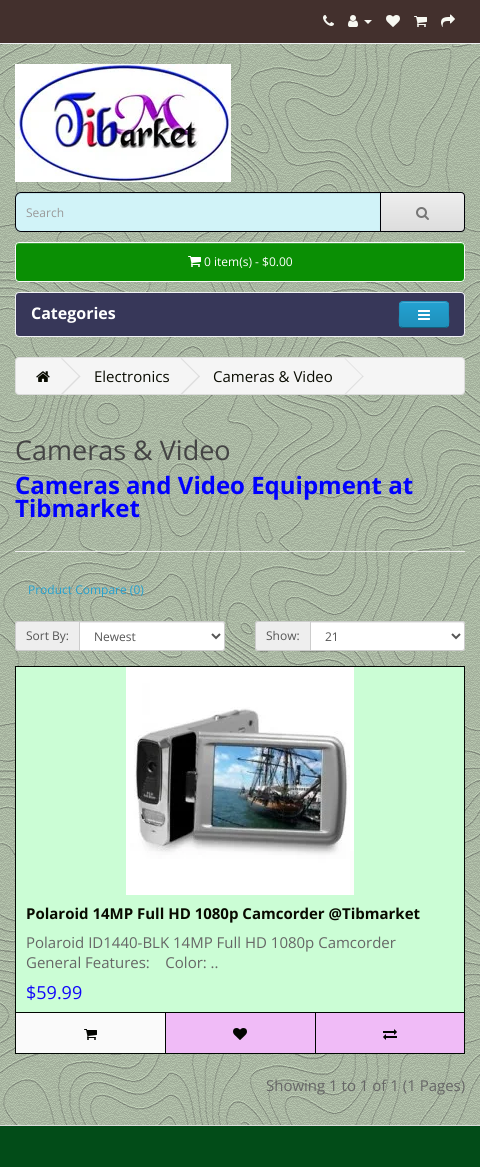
#include <cairo.h>
#include <math.h>
#include <stddef.h>

typedef struct { const char *family; double size; int italic, bold; unsigned color; } style_t;
static cairo_t *ctx;

static void ink(unsigned color) {
    cairo_set_source_rgb(ctx, (color >> 16) / 255.0, (color >> 8 & 255) / 255.0, (color & 255) / 255.0);
}

static void write(double x, double y, const char *s, const style_t *st) {
    cairo_select_font_face(ctx, st->family, st->italic ? CAIRO_FONT_SLANT_ITALIC : CAIRO_FONT_SLANT_NORMAL,
        st->bold ? CAIRO_FONT_WEIGHT_BOLD : CAIRO_FONT_WEIGHT_NORMAL);
    cairo_set_font_size(ctx, st->size);
    ink(st->color);
    cairo_move_to(ctx, x, y);
    cairo_show_text(ctx, s);
}

static void block(double x, double y, double w, double h, unsigned color) {
    ink(color);
    cairo_rectangle(ctx, x, y, w, h);
    cairo_fill(ctx);
}

static void round_path(double x, double y, double w, double h, double r) {
    cairo_new_sub_path(ctx);
    cairo_arc(ctx, x + w - r, y + h - r, r, 0, M_PI / 2);
    cairo_arc(ctx, x + r, y + h - r, r, M_PI / 2, M_PI);
    cairo_arc(ctx, x + r, y + r, r, M_PI, 1.5 * M_PI);
    cairo_arc(ctx, x + w - r, y + r, r, 1.5 * M_PI, 2 * M_PI);
    cairo_close_path(ctx);
}

static void blur_box(double x, double y, double w, double h, double r, double blur, double alpha) {
    cairo_push_group_with_content(ctx, CAIRO_CONTENT_ALPHA);
    cairo_set_operator(ctx, CAIRO_OPERATOR_SOURCE);
    for (int i = 15; i >= -15 && fmin(w, h) + blur * i / 3 > 0; i -= 2) {
        double e = blur * i / 6;
        cairo_set_source_rgba(ctx, 0, 0, 0, alpha * erfc((i - 1) / 8.5) / 2);
        round_path(x - e, y - e, w + 2 * e, h + 2 * e, fmax(0, fmin(r + e + blur * .6, fmin(w, h) / 2 + e)));
        cairo_fill(ctx);
    }
    cairo_pattern_t *soft = cairo_pop_group(ctx);
    cairo_mask(ctx, soft);
    cairo_pattern_destroy(soft);
}

static void paste(const char *path, double x, double y, double w, double h) {
    cairo_surface_t *image = cairo_image_surface_create_from_png(path);
    cairo_save(ctx);
    cairo_set_source_surface(ctx, image, x, y);
    cairo_rectangle(ctx, x, y, w, h);
    cairo_fill(ctx);
    cairo_restore(ctx);
    cairo_surface_destroy(image);
}

static const style_t s1 = {"Open Sans", 12, 0, 0, 0x999999};
static const style_t s2 = {"Open Sans", 12, 0, 0, 0xffffff};
static const style_t s3 = {"Open Sans", 16, 0, 1, 0xffffff};
static const style_t s4 = {"Open Sans", 15, 0, 0, 0x080a00};
static const style_t s5 = {"Open Sans", 27, 0, 0, 0x444444};
static const style_t s6 = {"Open Sans", 24, 0, 1, 0x0000ff};
static const style_t s7 = {"Open Sans", 12, 0, 0, 0x23a1d1};
static const style_t s8 = {"Open Sans", 12, 0, 0, 0x555555};
static const style_t s9 = {"Open Sans", 15, 0, 1, 0x080a00};
static const style_t s10 = {"Open Sans", 15, 0, 0, 0x666666};
static const style_t s11 = {"Open Sans", 18, 0, 0, 0x1207fa};

int main(void) {
    cairo_surface_t *surface = cairo_image_surface_create(CAIRO_FORMAT_RGB24, 480, 1167);
    ctx = cairo_create(surface);
    cairo_font_options_t *options = cairo_font_options_create();
    cairo_font_options_set_hint_metrics(options, CAIRO_HINT_METRICS_OFF);
    cairo_font_options_set_hint_style(options, CAIRO_HINT_STYLE_NONE);
    cairo_set_font_options(ctx, options);
    cairo_set_miter_limit(ctx, 4);
    cairo_pattern_t *gradient;
    ink(0xe0f4d5);
    cairo_paint(ctx);
    paste("pic1.png", 0, 44, 480, 1081);
    block(0, 0, 480, 43, 0x43302d);
    block(0, 43, 480, 1, 0xf0f1f4);
    paste("pic2.png", 323, 15, 11, 11);
    paste("pic3.png", 348, 15, 10, 12);
    ink(0xf7f8f2);
    cairo_new_path(ctx);
    cairo_move_to(ctx, 364, 20);
    cairo_line_to(ctx, 372, 20);
    cairo_line_to(ctx, 368, 24);
    cairo_close_path(ctx);
    cairo_fill(ctx);
    paste("pic4.png", 386, 15, 14, 12);
    paste("pic5.png", 414, 16, 13, 11);
    paste("pic6.png", 441, 14, 14, 13);
    paste("pic7.png", 15, 64, 216, 118);
    ink(0xd1f3f8);
    cairo_new_path(ctx);
    cairo_move_to(ctx, 21, 192);
    cairo_line_to(ctx, 381, 192);
    cairo_line_to(ctx, 381, 232);
    cairo_line_to(ctx, 21, 232);
    cairo_curve_to(ctx, 17.5, 232, 15, 229.5, 15, 226);
    cairo_line_to(ctx, 15, 198);
    cairo_curve_to(ctx, 15, 194.5, 17.5, 192, 21, 192);
    cairo_close_path(ctx);
    cairo_fill(ctx);
    ink(0xc1e1e5);
    cairo_new_path(ctx);
    cairo_move_to(ctx, 21, 194);
    cairo_line_to(ctx, 380, 194);
    cairo_line_to(ctx, 380, 193);
    cairo_line_to(ctx, 21, 193);
    cairo_curve_to(ctx, 18, 193, 16, 195, 16, 198);
    cairo_line_to(ctx, 16, 199);
    cairo_curve_to(ctx, 16, 196, 18, 194, 21, 194);
    cairo_close_path(ctx);
    cairo_fill(ctx);
    cairo_new_path(ctx);
    cairo_move_to(ctx, 21, 192.5);
    cairo_line_to(ctx, 380.5, 192.5);
    cairo_line_to(ctx, 380.5, 231.5);
    cairo_line_to(ctx, 21, 231.5);
    cairo_curve_to(ctx, 18, 231.5, 15.5, 229, 15.5, 226);
    cairo_line_to(ctx, 15.5, 198);
    cairo_curve_to(ctx, 15.5, 195, 18, 192.5, 21, 192.5);
    cairo_close_path(ctx);
    ink(0x000108);
    cairo_set_line_width(ctx, 1);
    cairo_stroke(ctx);
    write(26, 217, "Search", &s1);
    ink(0x000000);
    blur_box(380, 193, 85, 40, 4, 1, 0.05);
    cairo_save(ctx);
    cairo_new_path(ctx);
    cairo_move_to(ctx, 380, 192);
    cairo_line_to(ctx, 461, 192);
    cairo_curve_to(ctx, 463, 192, 465, 194, 465, 196);
    cairo_line_to(ctx, 465, 228);
    cairo_curve_to(ctx, 465, 230, 463, 232, 461, 232);
    cairo_line_to(ctx, 380, 232);
    cairo_close_path(ctx);
    cairo_clip(ctx);
    gradient = cairo_pattern_create_linear(423, 193, 423, 231);
    cairo_pattern_add_color_stop_rgba(gradient, 0, 0.933, 0.933, 0.933, 1);
    cairo_pattern_add_color_stop_rgba(gradient, 1, 0.867, 0.867, 0.867, 1);
    cairo_set_source(ctx, gradient);
    cairo_pattern_destroy(gradient);
    cairo_rectangle(ctx, 381, 193, 84, 38);
    cairo_fill(ctx);
    cairo_restore(ctx);
    ink(0xf1f1f1);
    cairo_new_path(ctx);
    cairo_move_to(ctx, 381, 194);
    cairo_line_to(ctx, 461, 194);
    cairo_curve_to(ctx, 463, 194, 464, 195, 464, 197);
    cairo_line_to(ctx, 464, 196);
    cairo_curve_to(ctx, 464, 194, 463, 193, 461, 193);
    cairo_line_to(ctx, 381, 193);
    cairo_close_path(ctx);
    cairo_fill(ctx);
    cairo_new_path(ctx);
    cairo_move_to(ctx, 380.5, 192.5);
    cairo_line_to(ctx, 461, 192.5);
    cairo_curve_to(ctx, 463, 192.5, 464.5, 194, 464.5, 196);
    cairo_line_to(ctx, 464.5, 228);
    cairo_curve_to(ctx, 464.5, 230, 463, 231.5, 461, 231.5);
    cairo_line_to(ctx, 380.5, 231.5);
    cairo_close_path(ctx);
    ink(0x000108);
    cairo_stroke(ctx);
    paste("pic8.png", 416, 207, 13, 13);
    ink(0x000000);
    blur_box(15, 243, 450, 40, 4, 1, 0.05);
    ink(0x0a8f04);
    round_path(15, 242, 450, 40, 4);
    cairo_fill(ctx);
    ink(0x3ba536);
    cairo_new_path(ctx);
    cairo_move_to(ctx, 19, 244);
    cairo_line_to(ctx, 461, 244);
    cairo_curve_to(ctx, 463, 244, 464, 245, 464, 247);
    cairo_curve_to(ctx, 464, 245, 463, 243, 461, 243);
    cairo_line_to(ctx, 18, 243);
    cairo_line_to(ctx, 16, 245);
    cairo_line_to(ctx, 16, 247);
    cairo_curve_to(ctx, 16, 245, 17, 244, 19, 244);
    cairo_close_path(ctx);
    cairo_fill(ctx);
    round_path(15.5, 242.5, 449, 39, 3.5);
    ink(0xfafcfa);
    cairo_stroke(ctx);
    paste("pic9.png", 188, 256, 13, 11);
    write(204, 266, "0 item(s) - $0.00", &s2);
    ink(0x373759);
    round_path(15.5, 292.5, 449, 44, 3.5);
    cairo_fill_preserve(ctx);
    ink(0xf2f2f8);
    cairo_stroke(ctx);
    write(31, 319, "Categories", &s3);
    ink(0x229ac8);
    round_path(399, 301, 50, 27, 4);
    cairo_fill(ctx);
    cairo_save(ctx);
    round_path(399, 301, 50, 27, 4);
    cairo_clip(ctx);
    gradient = cairo_pattern_create_linear(424, 302, 424, 327);
    cairo_pattern_add_color_stop_rgba(gradient, 0, 0.137, 0.631, 0.82, 1);
    cairo_pattern_add_color_stop_rgba(gradient, 1, 0.122, 0.565, 0.733, 1);
    cairo_set_source(ctx, gradient);
    cairo_pattern_destroy(gradient);
    cairo_rectangle(ctx, 399, 302, 50, 25);
    cairo_fill(ctx);
    cairo_restore(ctx);
    ink(0x4fb4da);
    cairo_new_path(ctx);
    cairo_move_to(ctx, 403, 303);
    cairo_line_to(ctx, 445, 303);
    cairo_curve_to(ctx, 447, 303, 448, 304, 448, 306);
    cairo_curve_to(ctx, 448, 300, 442, 302, 438, 302);
    cairo_line_to(ctx, 410, 302);
    cairo_curve_to(ctx, 406, 302, 400, 300, 400, 306);
    cairo_curve_to(ctx, 400, 304, 401, 303, 403, 303);
    cairo_close_path(ctx);
    cairo_fill(ctx);
    cairo_new_path(ctx);
    cairo_move_to(ctx, 447.5, 326.5);
    cairo_curve_to(ctx, 447, 327, 446, 327.5, 445, 327.5);
    cairo_line_to(ctx, 403, 327.5);
    cairo_curve_to(ctx, 402, 327.5, 401, 327, 400.5, 326.5);
    ink(0x145e7a);
    cairo_stroke(ctx);
    cairo_new_path(ctx);
    cairo_move_to(ctx, 400.5, 326.5);
    cairo_curve_to(ctx, 398.5, 324.5, 399.5, 317, 399.5, 314.5);
    cairo_curve_to(ctx, 399.5, 301.5, 397.5, 301.5, 410, 301.5);
    cairo_line_to(ctx, 438, 301.5);
    cairo_curve_to(ctx, 450.5, 301.5, 448.5, 301.5, 448.5, 314.5);
    cairo_curve_to(ctx, 448.5, 317, 449.5, 324.5, 447.5, 326.5);
    ink(0x1f90bb);
    cairo_stroke(ctx);
    paste("pic10.png", 418, 310, 12, 10);
    ink(0xf5f5f5);
    round_path(15.5, 357.5, 449, 37, 3.5);
    cairo_fill_preserve(ctx);
    ink(0xdddddd);
    cairo_stroke(ctx);
    paste("pic11.png", 36, 371, 14, 11);
    cairo_new_path(ctx);
    cairo_move_to(ctx, 61, 358.5);
    cairo_line_to(ctx, 62, 358);
    cairo_line_to(ctx, 80.5, 376.5);
    cairo_line_to(ctx, 79.5, 377);
    cairo_close_path(ctx);
    cairo_fill(ctx);
    cairo_new_path(ctx);
    cairo_move_to(ctx, 61, 394);
    cairo_line_to(ctx, 79.5, 375.5);
    cairo_line_to(ctx, 80.5, 376.5);
    cairo_line_to(ctx, 62, 395);
    cairo_close_path(ctx);
    cairo_fill(ctx);
    write(94, 382, "Electronics", &s4);
    ink(0xdddddd);
    cairo_new_path(ctx);
    cairo_move_to(ctx, 180.5, 358.5);
    cairo_line_to(ctx, 181.5, 358);
    cairo_line_to(ctx, 200, 376.5);
    cairo_line_to(ctx, 199, 377);
    cairo_close_path(ctx);
    cairo_fill(ctx);
    cairo_new_path(ctx);
    cairo_move_to(ctx, 180.5, 394);
    cairo_line_to(ctx, 199, 375.5);
    cairo_line_to(ctx, 200, 376.5);
    cairo_line_to(ctx, 181.5, 395);
    cairo_close_path(ctx);
    cairo_fill(ctx);
    write(213, 382, "Cameras & Video", &s4);
    ink(0xdddddd);
    cairo_new_path(ctx);
    cairo_move_to(ctx, 344.5, 358.5);
    cairo_line_to(ctx, 345, 358);
    cairo_line_to(ctx, 363.5, 376.5);
    cairo_line_to(ctx, 363, 377);
    cairo_close_path(ctx);
    cairo_fill(ctx);
    cairo_new_path(ctx);
    cairo_move_to(ctx, 344.5, 394);
    cairo_line_to(ctx, 363, 375.5);
    cairo_line_to(ctx, 363.5, 376.5);
    cairo_line_to(ctx, 345, 395);
    cairo_close_path(ctx);
    cairo_fill(ctx);
    write(15, 460, "Cameras & Video", &s5);
    write(15, 494, "Cameras and Video Equipment at", &s6);
    write(15, 517, "Tibmarket", &s6);
    block(15, 551, 450, 1, 0xeeeeee);
    write(28, 594, "Product Compare (0)", &s7);
    ink(0xeeeeee);
    cairo_new_path(ctx);
    cairo_move_to(ctx, 18, 621);
    cairo_line_to(ctx, 79, 621);
    cairo_line_to(ctx, 79, 651);
    cairo_line_to(ctx, 18, 651);
    cairo_curve_to(ctx, 16.5, 651, 15, 649.5, 15, 648);
    cairo_line_to(ctx, 15, 624);
    cairo_curve_to(ctx, 15, 622.5, 16.5, 621, 18, 621);
    cairo_close_path(ctx);
    cairo_fill(ctx);
    ink(0xcccccc);
    cairo_set_fill_rule(ctx, CAIRO_FILL_RULE_EVEN_ODD);
    cairo_new_path(ctx);
    cairo_move_to(ctx, 18, 621);
    cairo_line_to(ctx, 79, 621);
    cairo_line_to(ctx, 79, 651);
    cairo_line_to(ctx, 18, 651);
    cairo_curve_to(ctx, 16, 651, 15, 650, 15, 648);
    cairo_line_to(ctx, 15, 624);
    cairo_curve_to(ctx, 15, 622, 16, 621, 18, 621);
    cairo_close_path(ctx);
    cairo_move_to(ctx, 18, 622);
    cairo_line_to(ctx, 79, 622);
    cairo_line_to(ctx, 79, 650);
    cairo_line_to(ctx, 18, 650);
    cairo_curve_to(ctx, 17, 650, 16, 649, 16, 648);
    cairo_line_to(ctx, 16, 624);
    cairo_curve_to(ctx, 16, 623, 17, 622, 18, 622);
    cairo_close_path(ctx);
    cairo_fill(ctx);
    write(26, 640, "Sort By:", &s8);
    ink(0xffffff);
    cairo_new_path(ctx);
    cairo_move_to(ctx, 79, 621);
    cairo_line_to(ctx, 222, 621);
    cairo_curve_to(ctx, 223.5, 621, 225, 622.5, 225, 624);
    cairo_line_to(ctx, 225, 648);
    cairo_curve_to(ctx, 225, 649.5, 223.5, 651, 222, 651);
    cairo_line_to(ctx, 79, 651);
    cairo_close_path(ctx);
    cairo_fill(ctx);
    ink(0xececec);
    cairo_set_fill_rule(ctx, CAIRO_FILL_RULE_WINDING);
    cairo_new_path(ctx);
    cairo_move_to(ctx, 80, 623);
    cairo_line_to(ctx, 222, 623);
    cairo_curve_to(ctx, 223, 623, 224, 624, 224, 625);
    cairo_curve_to(ctx, 224, 624, 224, 622, 222, 622);
    cairo_line_to(ctx, 80, 622);
    cairo_close_path(ctx);
    cairo_fill(ctx);
    cairo_new_path(ctx);
    cairo_move_to(ctx, 79.5, 621.5);
    cairo_line_to(ctx, 222, 621.5);
    cairo_curve_to(ctx, 223.5, 621.5, 224.5, 622.5, 224.5, 624);
    cairo_line_to(ctx, 224.5, 648);
    cairo_curve_to(ctx, 224.5, 649.5, 223.5, 650.5, 222, 650.5);
    cairo_line_to(ctx, 79.5, 650.5);
    cairo_close_path(ctx);
    ink(0xcccccc);
    cairo_stroke(ctx);
    cairo_new_path(ctx);
    cairo_move_to(ctx, 212, 634);
    cairo_line_to(ctx, 216, 638);
    cairo_line_to(ctx, 220, 634);
    ink(0x555555);
    cairo_set_line_width(ctx, 2);
    cairo_stroke(ctx);
    write(94, 641, "Newest", &s8);
    ink(0xeeeeee);
    cairo_new_path(ctx);
    cairo_move_to(ctx, 258, 621);
    cairo_line_to(ctx, 310, 621);
    cairo_line_to(ctx, 310, 651);
    cairo_line_to(ctx, 258, 651);
    cairo_curve_to(ctx, 256.5, 651, 255, 649.5, 255, 648);
    cairo_line_to(ctx, 255, 624);
    cairo_curve_to(ctx, 255, 622.5, 256.5, 621, 258, 621);
    cairo_close_path(ctx);
    cairo_fill(ctx);
    ink(0xcccccc);
    cairo_set_fill_rule(ctx, CAIRO_FILL_RULE_EVEN_ODD);
    cairo_new_path(ctx);
    cairo_move_to(ctx, 258, 621);
    cairo_line_to(ctx, 310, 621);
    cairo_line_to(ctx, 310, 651);
    cairo_line_to(ctx, 258, 651);
    cairo_curve_to(ctx, 256, 651, 255, 650, 255, 648);
    cairo_line_to(ctx, 255, 624);
    cairo_curve_to(ctx, 255, 622, 256, 621, 258, 621);
    cairo_close_path(ctx);
    cairo_move_to(ctx, 258, 622);
    cairo_line_to(ctx, 310, 622);
    cairo_line_to(ctx, 310, 650);
    cairo_line_to(ctx, 258, 650);
    cairo_curve_to(ctx, 257, 650, 256, 649, 256, 648);
    cairo_line_to(ctx, 256, 624);
    cairo_curve_to(ctx, 256, 623, 257, 622, 258, 622);
    cairo_close_path(ctx);
    cairo_fill(ctx);
    write(266, 640, "Show:", &s8);
    ink(0xffffff);
    cairo_new_path(ctx);
    cairo_move_to(ctx, 310, 621);
    cairo_line_to(ctx, 462, 621);
    cairo_curve_to(ctx, 463.5, 621, 465, 622.5, 465, 624);
    cairo_line_to(ctx, 465, 648);
    cairo_curve_to(ctx, 465, 649.5, 463.5, 651, 462, 651);
    cairo_line_to(ctx, 310, 651);
    cairo_close_path(ctx);
    cairo_fill(ctx);
    ink(0xececec);
    cairo_set_fill_rule(ctx, CAIRO_FILL_RULE_WINDING);
    cairo_new_path(ctx);
    cairo_move_to(ctx, 311, 623);
    cairo_line_to(ctx, 462, 623);
    cairo_curve_to(ctx, 463, 623, 464, 624, 464, 625);
    cairo_curve_to(ctx, 464, 624, 464, 623, 463, 622);
    cairo_line_to(ctx, 311, 622);
    cairo_close_path(ctx);
    cairo_fill(ctx);
    cairo_new_path(ctx);
    cairo_move_to(ctx, 310.5, 621.5);
    cairo_line_to(ctx, 462, 621.5);
    cairo_curve_to(ctx, 463.5, 621.5, 464.5, 622.5, 464.5, 624);
    cairo_line_to(ctx, 464.5, 648);
    cairo_curve_to(ctx, 464.5, 649.5, 463.5, 650.5, 462, 650.5);
    cairo_line_to(ctx, 310.5, 650.5);
    cairo_close_path(ctx);
    ink(0xcccccc);
    cairo_set_line_width(ctx, 1);
    cairo_stroke(ctx);
    cairo_new_path(ctx);
    cairo_move_to(ctx, 452, 634);
    cairo_line_to(ctx, 456, 638);
    cairo_line_to(ctx, 460, 634);
    ink(0x555555);
    cairo_set_line_width(ctx, 2);
    cairo_stroke(ctx);
    write(325, 641, "21", &s8);
    block(16, 667, 448, 345, 0xcbfdd5);
    cairo_rectangle(ctx, 15.5, 666.5, 449, 387);
    ink(0x000601);
    cairo_set_line_width(ctx, 1);
    cairo_stroke(ctx);
    paste("pic12.png", 126, 667, 228, 228);
    write(26, 919, "Polaroid 14MP Full HD 1080p Camcorder @Tibmarket", &s9);
    write(26, 948, "Polaroid ID1440-BLK 14MP Full HD 1080p Camcorder", &s10);
    write(26, 968, "General Features:    Color: ..", &s10);
    write(26, 999, "$59.99", &s11);
    block(16, 1012, 448, 1, 0x000601);
    block(16, 1013, 149, 40, 0xfafafa);
    paste("pic13.png", 84, 1029, 13, 11);
    block(166, 1013, 149, 40, 0xf0bbf7);
    block(165, 1013, 1, 40, 0x000601);
    paste("pic14.png", 233, 1028, 14, 12);
    block(316, 1013, 148, 40, 0xf0bbf7);
    block(315, 1013, 1, 40, 0x000601);
    paste("pic15.png", 383, 1029, 14, 11);
    write(266, 1091, "Showing 1 to 1 of 1 (1 Pages)", &s10);
    block(0, 1126, 480, 41, 0x024c18);
    block(0, 1125, 480, 1, 0xdddddd);
    cairo_surface_write_to_png(surface, "screenshot.png");
    cairo_font_options_destroy(options);
    cairo_destroy(ctx);
    cairo_surface_destroy(surface);
    return 0;
}
